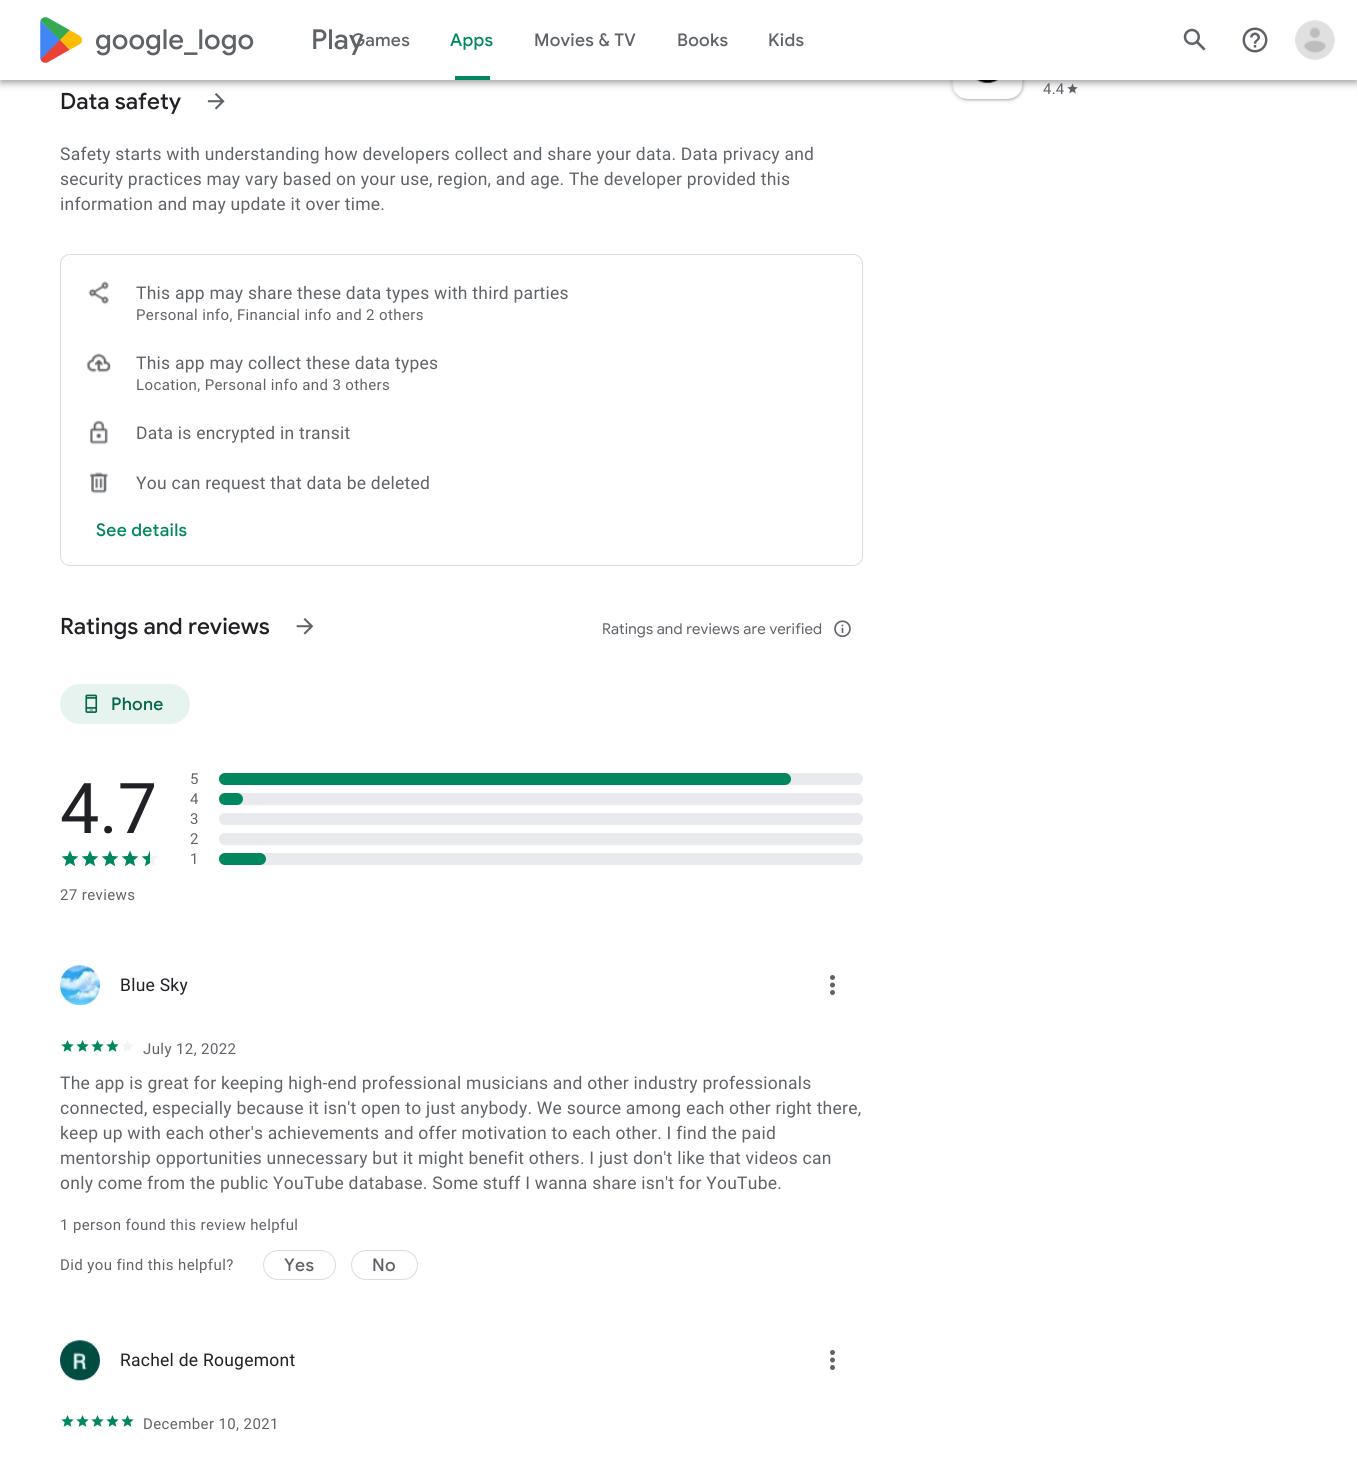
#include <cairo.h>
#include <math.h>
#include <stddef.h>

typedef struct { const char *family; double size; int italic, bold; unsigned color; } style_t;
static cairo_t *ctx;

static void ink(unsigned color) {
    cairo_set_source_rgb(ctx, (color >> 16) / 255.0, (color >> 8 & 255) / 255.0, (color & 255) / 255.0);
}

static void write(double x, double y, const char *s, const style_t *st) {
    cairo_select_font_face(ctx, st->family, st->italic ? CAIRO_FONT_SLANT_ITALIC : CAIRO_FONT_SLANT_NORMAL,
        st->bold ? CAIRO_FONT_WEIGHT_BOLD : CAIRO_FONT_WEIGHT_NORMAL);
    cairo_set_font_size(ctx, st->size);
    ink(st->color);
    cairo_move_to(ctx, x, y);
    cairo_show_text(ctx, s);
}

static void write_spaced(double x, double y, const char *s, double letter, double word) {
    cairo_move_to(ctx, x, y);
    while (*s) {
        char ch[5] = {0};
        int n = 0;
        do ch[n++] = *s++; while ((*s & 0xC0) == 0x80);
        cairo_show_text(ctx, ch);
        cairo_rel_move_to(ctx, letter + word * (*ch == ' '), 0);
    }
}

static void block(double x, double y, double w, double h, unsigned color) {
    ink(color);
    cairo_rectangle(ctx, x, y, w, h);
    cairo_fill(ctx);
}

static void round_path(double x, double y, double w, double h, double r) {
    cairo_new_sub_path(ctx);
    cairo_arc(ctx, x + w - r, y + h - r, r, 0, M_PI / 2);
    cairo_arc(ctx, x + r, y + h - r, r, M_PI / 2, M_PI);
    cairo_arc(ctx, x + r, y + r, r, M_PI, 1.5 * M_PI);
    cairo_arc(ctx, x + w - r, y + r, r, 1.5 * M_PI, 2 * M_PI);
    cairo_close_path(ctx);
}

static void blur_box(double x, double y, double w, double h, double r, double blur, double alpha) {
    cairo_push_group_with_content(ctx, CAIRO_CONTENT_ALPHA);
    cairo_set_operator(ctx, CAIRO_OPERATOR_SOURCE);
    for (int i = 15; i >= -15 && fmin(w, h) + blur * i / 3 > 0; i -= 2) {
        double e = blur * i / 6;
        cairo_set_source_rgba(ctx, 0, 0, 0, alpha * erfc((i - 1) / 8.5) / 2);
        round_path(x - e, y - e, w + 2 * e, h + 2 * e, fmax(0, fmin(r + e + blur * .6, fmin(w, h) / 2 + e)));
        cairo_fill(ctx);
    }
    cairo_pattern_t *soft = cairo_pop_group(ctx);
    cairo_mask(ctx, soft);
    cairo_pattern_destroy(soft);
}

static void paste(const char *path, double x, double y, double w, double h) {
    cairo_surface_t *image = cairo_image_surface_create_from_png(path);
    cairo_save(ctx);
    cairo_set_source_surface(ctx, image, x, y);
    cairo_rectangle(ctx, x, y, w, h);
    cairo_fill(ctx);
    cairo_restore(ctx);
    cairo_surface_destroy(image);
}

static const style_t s1 = {"Google Sans Medium", 22.5, 0, 0, 0x202124};
static const style_t s2 = {"Roboto", 70, 0, 0, 0x202124};

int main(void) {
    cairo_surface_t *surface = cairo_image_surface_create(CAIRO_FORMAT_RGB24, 1357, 1458);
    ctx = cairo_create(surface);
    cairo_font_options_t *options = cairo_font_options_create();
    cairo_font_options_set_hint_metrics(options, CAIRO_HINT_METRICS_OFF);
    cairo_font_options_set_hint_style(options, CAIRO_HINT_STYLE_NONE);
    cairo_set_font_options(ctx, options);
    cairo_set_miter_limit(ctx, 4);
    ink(0xffffff);
    cairo_paint(ctx);
    ink(0x3c4043);
    blur_box(951, 29, 73, 72, 16, 2, 0.15);
    blur_box(953, 30, 70, 70, 15, 1, 0.3);
    paste("pic5.png", 952, 80, 71, 19);
    paste("pic6.png", 1067, 83, 11, 11);
    ink(0x000000);
    blur_box(1, 4, 1355, 77, 0, 2.5, 0.2);
    paste("pic7.png", 207, 93, 18, 17);
    blur_box(0, 1, 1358, 80, 0, 6, 0.12);
    blur_box(0, 5, 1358, 80, 0, 3, 0.14);
    block(0, 0, 1357, 80, 0xffffff);
    paste("pic1.png", 40, 17, 42, 46);
    cairo_select_font_face(ctx, "Google Sans Medium", CAIRO_FONT_SLANT_NORMAL, CAIRO_FONT_WEIGHT_NORMAL);
    cairo_set_font_size(ctx, 27.5);
    ink(0x5f6368);
    write_spaced(95, 49, "google_logo", 0, 69);
    write_spaced(311, 49, "Play", 0, 69);
    cairo_set_font_size(ctx, 17.5);
    write_spaced(351, 46, "Games", 0.25, 0);
    ink(0x01875f);
    write_spaced(450, 46, "Apps", 0.25, 0);
    block(455, 76, 35, 4, 0x01875f);
    ink(0x5f6368);
    write_spaced(534, 46, "Movies & TV", 0.25, 0);
    write_spaced(677, 46, "Books", 0.25, 0);
    write_spaced(768, 46, "Kids", 0.25, 0);
    paste("pic2.png", 1183, 28, 23, 23);
    paste("pic3.png", 1242, 27, 26, 26);
    paste("pic4.png", 1295, 20, 40, 40);
    cairo_select_font_face(ctx, "Roboto", CAIRO_FONT_SLANT_NORMAL, CAIRO_FONT_WEIGHT_NORMAL);
    cairo_set_font_size(ctx, 15);
    write_spaced(1043, 94, "4.4", 0.25, 0);
    write(60, 109, "Data safety", &s1);
    cairo_select_font_face(ctx, "Roboto", CAIRO_FONT_SLANT_NORMAL, CAIRO_FONT_WEIGHT_NORMAL);
    cairo_set_font_size(ctx, 17.5);
    ink(0x5f6368);
    write_spaced(60, 160, "Safety starts with understanding how developers collect and share your data. Data privacy and", 0.25, 0);
    write_spaced(60, 185, "security practices may vary based on your use, region, and age. The developer provided this", 0.25, 0);
    write_spaced(60, 210, "information and may update it over time.", 0.25, 0);
    round_path(60.5, 254.5, 802, 311, 9.5);
    ink(0xdadce0);
    cairo_set_line_width(ctx, 1);
    cairo_stroke(ctx);
    paste("pic8.png", 88, 281, 21, 24);
    ink(0x5f6368);
    write_spaced(136, 299, "This app may share these data types with third parties", 0.25, 0);
    cairo_set_font_size(ctx, 15);
    write_spaced(136, 320, "Personal info, Financial info and 2 others", 0.4, 0);
    paste("pic9.png", 86, 353, 25, 20);
    cairo_set_font_size(ctx, 17.5);
    write_spaced(136, 369, "This app may collect these data types", 0.25, 0);
    cairo_set_font_size(ctx, 15);
    write_spaced(136, 390, "Location, Personal info and 3 others", 0.4, 0);
    paste("pic10.png", 89, 420, 19, 25);
    cairo_set_font_size(ctx, 17.5);
    write_spaced(136, 439, "Data is encrypted in transit", 0.25, 0);
    paste("pic11.png", 89, 472, 19, 22);
    write_spaced(136, 489, "You can request that data be deleted", 0.25, 0);
    cairo_select_font_face(ctx, "Google Sans Medium", CAIRO_FONT_SLANT_NORMAL, CAIRO_FONT_WEIGHT_NORMAL);
    ink(0x01875f);
    write_spaced(96, 536, "See details", 0.25, 0);
    write(60, 634, "Ratings and reviews", &s1);
    paste("pic12.png", 296, 618, 18, 17);
    cairo_select_font_face(ctx, "Google Sans", CAIRO_FONT_SLANT_NORMAL, CAIRO_FONT_WEIGHT_NORMAL);
    cairo_set_font_size(ctx, 15);
    ink(0x5f6368);
    write_spaced(602, 634, "Ratings and reviews are verified", 0.15, 0);
    paste("pic13.png", 834, 620, 17, 18);
    ink(0xe6f3ef);
    round_path(60, 684, 130, 40, 20);
    cairo_fill(ctx);
    paste("pic14.png", 85, 694, 13, 19);
    cairo_select_font_face(ctx, "Google Sans Medium", CAIRO_FONT_SLANT_NORMAL, CAIRO_FONT_WEIGHT_NORMAL);
    cairo_set_font_size(ctx, 17.5);
    ink(0x056449);
    write_spaced(111, 710, "Phone", 0.25, 0);
    write(60, 833, "4.7", &s2);
    paste("pic15.png", 61, 850, 18, 17);
    paste("pic15.png", 81, 850, 18, 17);
    paste("pic15.png", 101, 850, 18, 17);
    paste("pic15.png", 121, 850, 18, 17);
    paste("pic16.png", 141, 850, 17, 17);
    cairo_set_font_size(ctx, 15);
    ink(0x5f6368);
    write_spaced(60, 900, "27 reviews", 0.4, 0);
    write_spaced(190, 784, "5", 0.4, 0);
    ink(0xe8eaed);
    round_path(219, 773, 644, 12, 6);
    cairo_fill(ctx);
    ink(0x01875f);
    round_path(219, 773, 572, 12, 6);
    cairo_fill(ctx);
    ink(0x5f6368);
    write_spaced(190, 804, "4", 0.4, 0);
    ink(0xe8eaed);
    round_path(219, 793, 644, 12, 6);
    cairo_fill(ctx);
    ink(0x01875f);
    round_path(219, 793, 24, 12, 6);
    cairo_fill(ctx);
    ink(0x5f6368);
    write_spaced(190, 824, "3", 0.4, 0);
    ink(0xe8eaed);
    round_path(219, 813, 644, 12, 6);
    cairo_fill(ctx);
    ink(0x5f6368);
    write_spaced(190, 844, "2", 0.4, 0);
    ink(0xe8eaed);
    round_path(219, 833, 644, 12, 6);
    cairo_fill(ctx);
    ink(0x5f6368);
    write_spaced(190, 864, "1", 0.4, 0);
    ink(0xe8eaed);
    round_path(219, 853, 644, 12, 6);
    cairo_fill(ctx);
    ink(0x01875f);
    round_path(219, 853, 47, 12, 6);
    cairo_fill(ctx);
    paste("pic17.png", 60, 965, 40, 40);
    cairo_set_font_size(ctx, 17.5);
    ink(0x202124);
    write_spaced(120, 991, "Blue Sky", 0.25, 0);
    paste("pic18.png", 830, 975, 5, 20);
    paste("pic19.png", 61, 1040, 13, 12);
    paste("pic19.png", 76, 1040, 13, 12);
    paste("pic19.png", 91, 1040, 13, 12);
    paste("pic19.png", 106, 1040, 13, 12);
    paste("pic20.png", 122, 1040, 11, 12);
    cairo_set_font_size(ctx, 15);
    ink(0x5f6368);
    write_spaced(143, 1054, "July 12, 2022", 0.4, 0);
    cairo_set_font_size(ctx, 17.5);
    write_spaced(60, 1089, "The app is great for keeping high-end professional musicians and other industry professionals", 0.25, 0);
    write_spaced(60, 1114, "connected, especially because it isn't open to just anybody. We source among each other right there,", 0.25, 0);
    write_spaced(60, 1139, "keep up with each other's achievements and offer motivation to each other. I find the paid", 0.25, 0);
    write_spaced(60, 1164, "mentorship opportunities unnecessary but it might benefit others. I just don't like that videos can", 0.25, 0);
    write_spaced(60, 1189, "only come from the public YouTube database. Some stuff I wanna share isn't for YouTube.", 0.25, 0);
    cairo_set_font_size(ctx, 15);
    write_spaced(60, 1230, "1 person found this review helpful", 0.4, 0);
    write_spaced(60, 1270, "Did you find this helpful?", 0.4, 0);
    round_path(263.5, 1250.5, 72, 29, 14.5);
    ink(0xdadce0);
    cairo_stroke(ctx);
    cairo_select_font_face(ctx, "Google Sans Medium", CAIRO_FONT_SLANT_NORMAL, CAIRO_FONT_WEIGHT_NORMAL);
    cairo_set_font_size(ctx, 17.5);
    ink(0x5f6368);
    write_spaced(284, 1271, "Yes", 0.25, 0);
    round_path(351.5, 1250.5, 66, 29, 14.5);
    ink(0xdadce0);
    cairo_stroke(ctx);
    ink(0x5f6368);
    write_spaced(372, 1271, "No", 0.25, 0);
    paste("pic21.png", 60, 1340, 40, 41);
    cairo_select_font_face(ctx, "Roboto", CAIRO_FONT_SLANT_NORMAL, CAIRO_FONT_WEIGHT_NORMAL);
    ink(0x202124);
    write_spaced(120, 1366, "Rachel de Rougemont", 0.25, 0);
    paste("pic18.png", 830, 1350, 5, 20);
    paste("pic19.png", 61, 1415, 13, 12);
    paste("pic19.png", 76, 1415, 13, 12);
    paste("pic19.png", 91, 1415, 13, 12);
    paste("pic19.png", 106, 1415, 13, 12);
    paste("pic19.png", 121, 1415, 13, 12);
    cairo_set_font_size(ctx, 15);
    ink(0x5f6368);
    write_spaced(143, 1429, "December 10, 2021", 0.4, 0);
    cairo_surface_write_to_png(surface, "screenshot.png");
    cairo_font_options_destroy(options);
    cairo_destroy(ctx);
    cairo_surface_destroy(surface);
    return 0;
}
